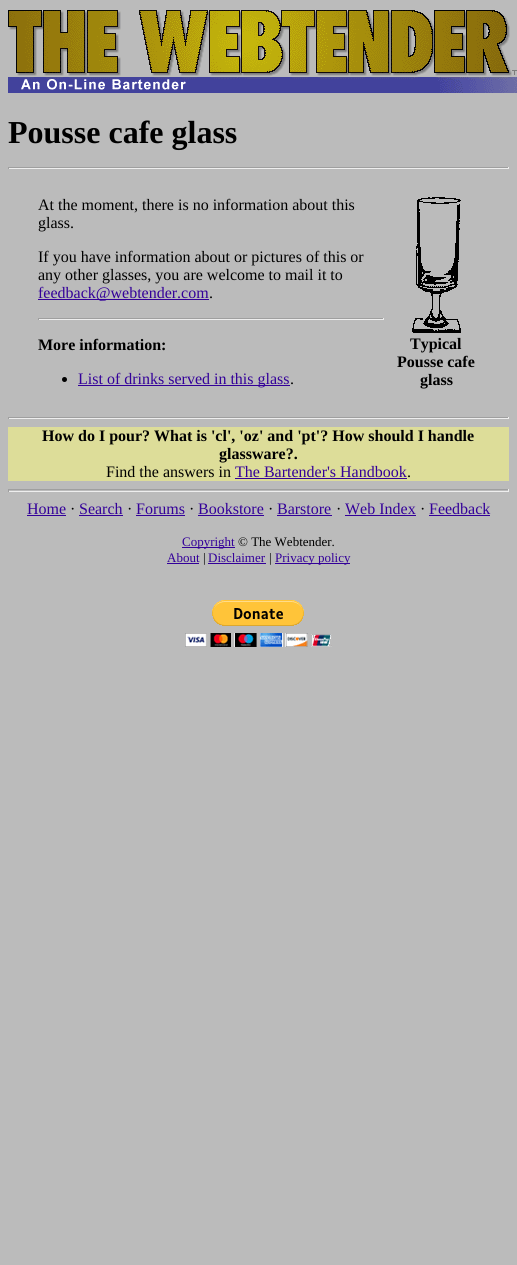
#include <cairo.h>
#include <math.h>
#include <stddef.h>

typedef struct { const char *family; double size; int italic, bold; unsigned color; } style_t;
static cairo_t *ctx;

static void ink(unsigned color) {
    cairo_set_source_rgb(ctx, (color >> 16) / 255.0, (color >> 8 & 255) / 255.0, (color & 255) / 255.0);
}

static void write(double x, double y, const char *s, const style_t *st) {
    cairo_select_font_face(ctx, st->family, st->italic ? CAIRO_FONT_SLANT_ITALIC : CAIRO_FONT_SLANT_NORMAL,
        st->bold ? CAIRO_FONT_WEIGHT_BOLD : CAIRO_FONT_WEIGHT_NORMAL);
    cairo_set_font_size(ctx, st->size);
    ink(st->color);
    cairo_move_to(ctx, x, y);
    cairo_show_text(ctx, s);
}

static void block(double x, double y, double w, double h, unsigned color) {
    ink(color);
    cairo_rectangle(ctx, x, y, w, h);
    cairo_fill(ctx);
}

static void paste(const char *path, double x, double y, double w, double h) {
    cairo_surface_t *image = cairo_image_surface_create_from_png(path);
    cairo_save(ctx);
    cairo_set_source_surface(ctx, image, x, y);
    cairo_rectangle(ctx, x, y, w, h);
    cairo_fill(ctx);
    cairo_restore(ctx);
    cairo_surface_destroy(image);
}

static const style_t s1 = {"Liberation Serif", 32, 0, 1, 0x000000};
static const style_t s2 = {"Liberation Serif", 16, 0, 0, 0x000000};
static const style_t s3 = {"Liberation Serif", 16, 0, 0, 0x330099};
static const style_t s4 = {"Liberation Serif", 16, 0, 1, 0x000000};
static const style_t s5 = {"Liberation Serif", 13, 0, 0, 0x330099};
static const style_t s6 = {"Liberation Serif", 13, 0, 0, 0x000000};

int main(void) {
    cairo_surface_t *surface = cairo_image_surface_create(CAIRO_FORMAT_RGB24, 517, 1265);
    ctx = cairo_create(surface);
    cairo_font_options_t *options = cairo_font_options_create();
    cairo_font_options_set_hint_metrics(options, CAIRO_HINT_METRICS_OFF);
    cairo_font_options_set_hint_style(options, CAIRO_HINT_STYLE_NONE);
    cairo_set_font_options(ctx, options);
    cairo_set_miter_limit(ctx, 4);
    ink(0xbbbbbb);
    cairo_paint(ctx);
    paste("pic1.png", 8, 10, 509, 66);
    paste("pic2.png", 8, 77, 509, 16);
    write(8, 143, "Pousse cafe glass", &s1);
    block(8, 167, 501, 1, 0x9f9f9f);
    block(508, 167, 1, 2, 0xeeeeee);
    block(8, 168, 501, 1, 0xeeeeee);
    block(8, 167, 1, 2, 0x9f9f9f);
    write(38, 210, "At the moment, there is no information about this", &s2);
    write(38, 228, "glass.", &s2);
    write(38, 262, "If you have information about or pictures of this or", &s2);
    write(38, 280, "any other glasses, you are welcome to mail it to", &s2);
    block(38, 299, 171, 1, 0x330099);
    write(38, 298, "feedback@webtender.com", &s3);
    write(209, 298, ".", &s2);
    block(38, 318, 346, 1, 0x9f9f9f);
    block(383, 318, 1, 2, 0xeeeeee);
    block(38, 319, 346, 1, 0xeeeeee);
    block(38, 318, 1, 2, 0x9f9f9f);
    write(38, 350, "More information:", &s4);
    cairo_new_path(ctx);
    cairo_arc(ctx, 64.5, 379.5, 2.5, 0, 2 * M_PI);
    cairo_fill(ctx);
    block(78, 385, 212, 1, 0x330099);
    write(78, 384, "List of drinks served in this glass", &s3);
    write(290, 384, ".", &s2);
    paste("pic3.png", 412, 197, 49, 136);
    write(410, 349, "Typical", &s4);
    write(397, 367, "Pousse cafe", &s4);
    write(420, 385, "glass", &s4);
    block(8, 417, 501, 1, 0x9f9f9f);
    block(508, 417, 1, 2, 0xeeeeee);
    block(8, 418, 501, 1, 0xeeeeee);
    block(8, 417, 1, 2, 0x9f9f9f);
    block(8, 427, 501, 54, 0xdddd99);
    write(42, 441, "How do I pour? What is 'cl', 'oz' and 'pt'? How should I handle", &s4);
    write(219, 459, "glassware?.", &s4);
    write(106, 477, "Find the answers in", &s2);
    write(235, 477, "The Bartender's Handbook", &s3);
    block(235, 478, 172, 1, 0x330099);
    write(407, 477, ".", &s2);
    block(8, 489, 501, 1, 0x9f9f9f);
    block(508, 489, 1, 3, 0xeeeeee);
    block(8, 491, 501, 1, 0xeeeeee);
    block(8, 489, 1, 3, 0x9f9f9f);
    write(27, 514, "Home", &s3);
    block(27, 515, 39, 1, 0x330099);
    write(70, 514, "·", &s2);
    write(79, 514, "Search", &s3);
    block(79, 515, 44, 1, 0x330099);
    write(127, 514, "·", &s2);
    write(136, 514, "Forums", &s3);
    block(136, 515, 49, 1, 0x330099);
    write(189, 514, "·", &s2);
    write(198, 514, "Bookstore", &s3);
    block(198, 515, 66, 1, 0x330099);
    write(268, 514, "·", &s2);
    write(277, 514, "Barstore", &s3);
    block(277, 515, 55, 1, 0x330099);
    write(336, 514, "·", &s2);
    write(345, 514, "Web Index", &s3);
    block(345, 515, 71, 1, 0x330099);
    write(420, 514, "·", &s2);
    write(429, 514, "Feedback", &s3);
    block(429, 515, 61, 1, 0x330099);
    block(182, 547, 53, 1, 0x330099);
    write(182, 546, "Copyright", &s5);
    write(238, 546, "© The Webtender.", &s6);
    write(167, 562, "About", &s5);
    block(167, 563, 32, 1, 0x330099);
    write(203, 562, "|", &s6);
    write(208, 562, "Disclaimer", &s5);
    block(208, 563, 58, 1, 0x330099);
    write(269, 562, "|", &s6);
    block(275, 563, 75, 1, 0x330099);
    write(275, 562, "Privacy policy", &s5);
    paste("pic4.png", 185, 600, 147, 47);
    cairo_surface_write_to_png(surface, "screenshot.png");
    cairo_font_options_destroy(options);
    cairo_destroy(ctx);
    cairo_surface_destroy(surface);
    return 0;
}
